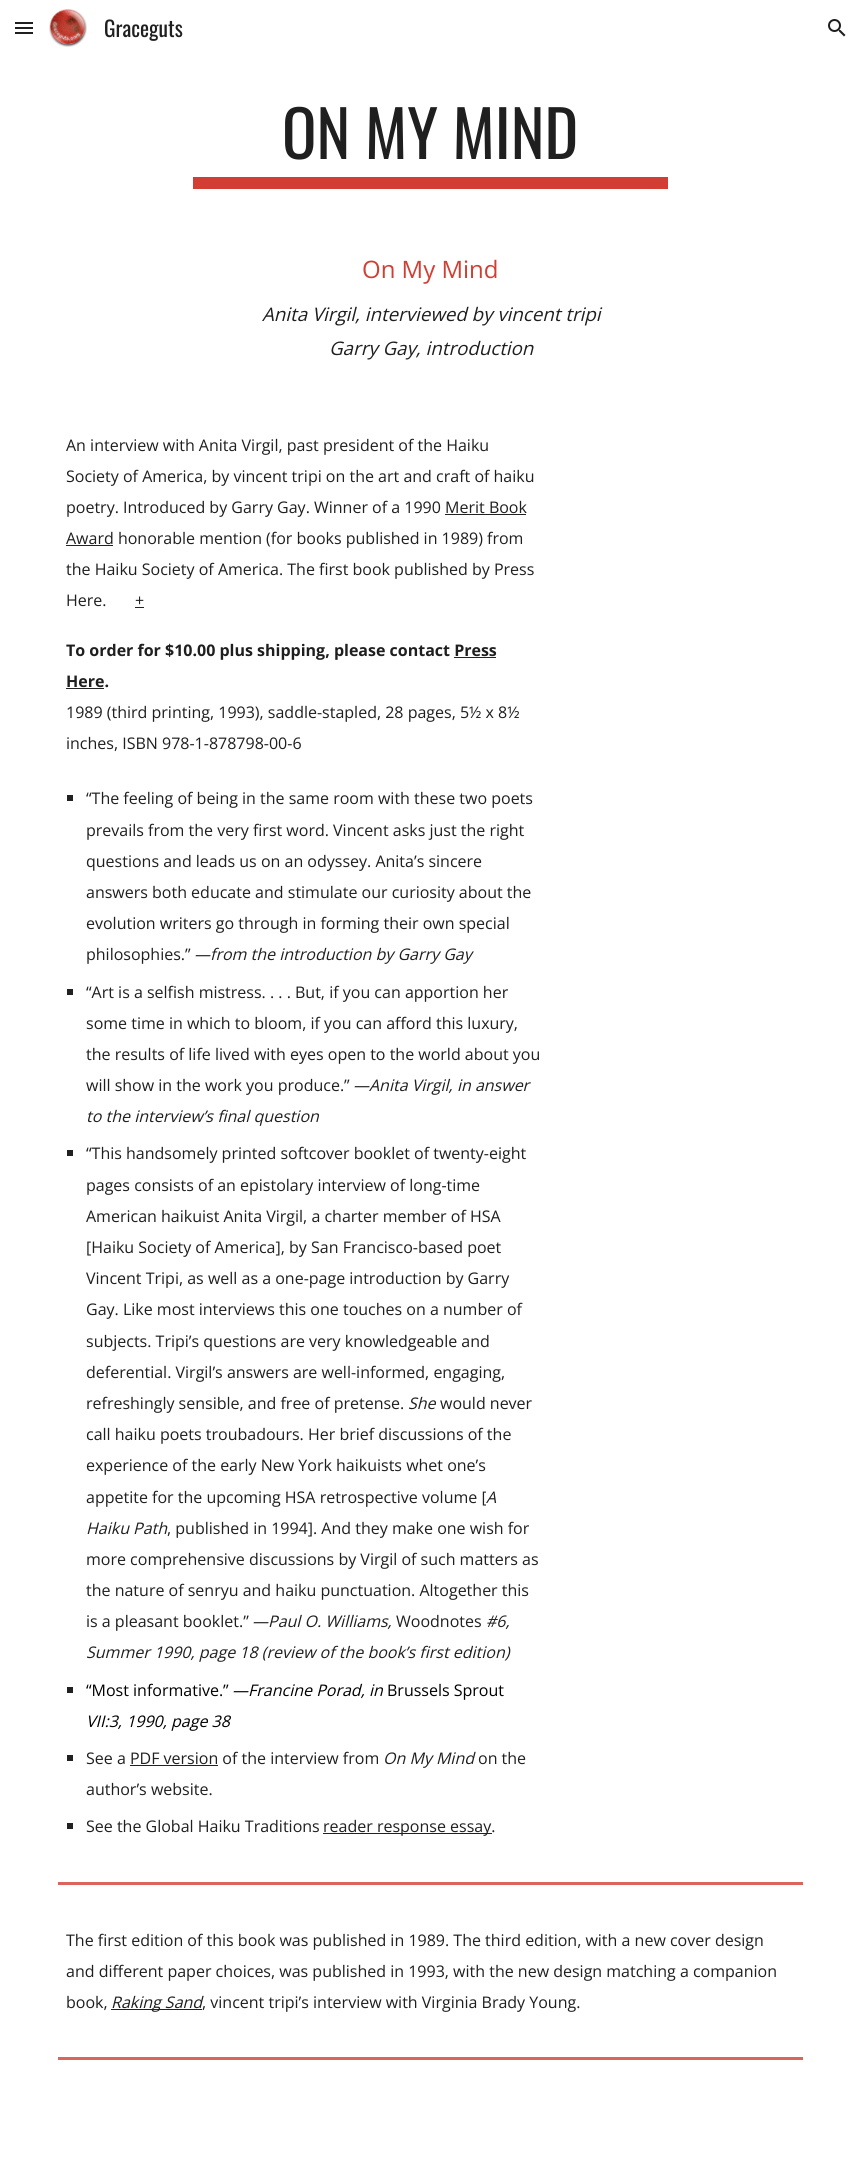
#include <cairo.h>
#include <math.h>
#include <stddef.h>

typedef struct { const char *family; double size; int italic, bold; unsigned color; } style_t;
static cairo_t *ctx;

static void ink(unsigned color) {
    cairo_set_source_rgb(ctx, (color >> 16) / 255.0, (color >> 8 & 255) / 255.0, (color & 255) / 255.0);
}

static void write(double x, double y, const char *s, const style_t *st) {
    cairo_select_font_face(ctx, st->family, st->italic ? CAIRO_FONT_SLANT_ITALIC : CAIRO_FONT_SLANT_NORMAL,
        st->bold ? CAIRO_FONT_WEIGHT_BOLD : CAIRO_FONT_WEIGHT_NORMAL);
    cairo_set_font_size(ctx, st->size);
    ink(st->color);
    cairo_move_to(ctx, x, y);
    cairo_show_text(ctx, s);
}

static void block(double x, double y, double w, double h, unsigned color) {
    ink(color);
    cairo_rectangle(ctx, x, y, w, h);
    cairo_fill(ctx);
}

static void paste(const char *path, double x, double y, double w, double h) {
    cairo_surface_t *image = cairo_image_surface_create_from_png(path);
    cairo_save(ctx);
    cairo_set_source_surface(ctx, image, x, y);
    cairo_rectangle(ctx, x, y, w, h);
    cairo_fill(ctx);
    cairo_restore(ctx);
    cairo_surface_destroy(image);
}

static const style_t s1 = {"Oswald", 21.5, 0, 0, 0x1f1f1f};
static const style_t s2 = {"Oswald", 64, 0, 0, 0x1f1f1f};
static const style_t s3 = {"Open Sans", 24, 0, 0, 0xd23e34};
static const style_t s4 = {"Open Sans", 18.7, 1, 0, 0x1f1f1f};
static const style_t s5 = {"Open Sans", 16, 0, 0, 0x1f1f1f};
static const style_t s6 = {"Open Sans", 16, 0, 1, 0x1f1f1f};
static const style_t s7 = {"Open Sans", 16, 1, 0, 0x1f1f1f};
static const style_t s8 = {"Open Sans", 16, 0, 0, 0x000000};
static const style_t s9 = {"Open Sans", 16, 1, 0, 0x000000};

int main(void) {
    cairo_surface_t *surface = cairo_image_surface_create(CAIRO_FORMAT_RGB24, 861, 2164);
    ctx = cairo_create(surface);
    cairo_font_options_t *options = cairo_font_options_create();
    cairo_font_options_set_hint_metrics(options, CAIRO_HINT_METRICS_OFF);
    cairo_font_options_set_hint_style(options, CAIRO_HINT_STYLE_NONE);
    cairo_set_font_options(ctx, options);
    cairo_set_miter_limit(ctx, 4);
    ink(0xffffff);
    cairo_paint(ctx);
    block(15, 22, 18, 2, 0x1f1f1f);
    block(15, 27, 18, 2, 0x1f1f1f);
    block(15, 32, 18, 2, 0x1f1f1f);
    paste("pic1.png", 49, 9, 38, 38);
    write(104, 37, "Graceguts", &s1);
    paste("pic2.png", 828, 19, 18, 18);
    write(282, 159, "ON MY MIND", &s2);
    block(193, 177, 475, 12, 0xd23e34);
    write(362, 278, "On My Mind", &s3);
    write(262, 321, "Anita Virgil, interviewed by vincent tripi", &s4);
    write(329, 355, "Garry Gay, introduction", &s4);
    write(66, 451, "An interview with Anita Virgil, past president of the Haiku", &s5);
    write(66, 482, "Society of America, by vincent tripi on the art and craft of haiku", &s5);
    write(66, 513, "poetry. Introduced by Garry Gay. Winner of a 1990 Merit Book", &s5);
    block(66, 545, 47, 1, 0x212121);
    write(66, 544, "Award honorable mention (for books published in 1989) from", &s5);
    block(445, 514, 81, 1, 0x212121);
    write(66, 575, "the Haiku Society of America. The first book published by Press", &s5);
    write(66, 606, "Here.", &s5);
    write(135, 606, "+", &s5);
    block(135, 607, 9, 1, 0x212121);
    write(66, 656, "To order for $10.00 plus shipping, please contact Press", &s6);
    write(66, 687, "Here.", &s6);
    block(454, 657, 42, 1, 0x212121);
    block(66, 688, 38, 1, 0x212121);
    write(66, 718, "1989 (third printing, 1993), saddle-stapled, 28 pages, 5½ x 8½", &s5);
    write(66, 749, "inches, ISBN 978-1-878798-00-6", &s5);
    block(67, 795, 6, 6, 0x212121);
    write(86, 804, "“The feeling of being in the same room with these two poets", &s5);
    write(86, 836, "prevails from the very first word. Vincent asks just the right", &s5);
    write(86, 867, "questions and leads us on an odyssey. Anita’s sincere", &s5);
    write(86, 898, "answers both educate and stimulate our curiosity about the", &s5);
    write(86, 929, "evolution writers go through in forming their own special", &s5);
    write(86, 960, "philosophies.”", &s5);
    write(194, 960, "—from the introduction by Garry Gay", &s7);
    block(67, 989, 6, 6, 0x212121);
    write(86, 998, "“Art is a selfish mistress. . . . But, if you can apportion her", &s5);
    write(86, 1029, "some time in which to bloom, if you can afford this luxury,", &s5);
    write(86, 1060, "the results of life lived with eyes open to the world about you", &s5);
    write(86, 1091, "will show in the work you produce.”", &s5);
    write(353, 1091, "—Anita Virgil, in answer", &s7);
    write(86, 1122, "to the interview’s final question", &s7);
    block(67, 1150, 6, 6, 0x212121);
    write(86, 1159, "“This handsomely printed softcover booklet of twenty-eight", &s5);
    write(86, 1191, "pages consists of an epistolary interview of long-time", &s5);
    write(86, 1222, "American haikuist Anita Virgil, a charter member of HSA", &s5);
    write(86, 1253, "[Haiku Society of America], by San Francisco-based poet", &s5);
    write(86, 1284, "Vincent Tripi, as well as a one-page introduction by Garry", &s5);
    write(86, 1315, "Gay. Like most interviews this one touches on a number of", &s5);
    write(86, 1347, "subjects. Tripi’s questions are very knowledgeable and", &s5);
    write(86, 1378, "deferential. Virgil’s answers are well-informed, engaging,", &s5);
    write(86, 1409, "refreshingly sensible, and free of pretense.", &s5);
    write(408, 1409, "She", &s7);
    write(440, 1409, "would never", &s5);
    write(86, 1440, "call haiku poets troubadours. Her brief discussions of the", &s5);
    write(86, 1471, "experience of the early New York haikuists whet one’s", &s5);
    write(86, 1503, "appetite for the upcoming HSA retrospective volume [", &s5);
    write(486, 1503, "A", &s7);
    write(86, 1534, "Haiku Path", &s7);
    write(167, 1534, ", published in 1994]. And they make one wish for", &s5);
    write(86, 1565, "more comprehensive discussions by Virgil of such matters as", &s5);
    write(86, 1596, "the nature of senryu and haiku punctuation. Altogether this", &s5);
    write(86, 1627, "is a pleasant booklet.”", &s5);
    write(252, 1627, "—Paul O. Williams,", &s7);
    write(396, 1627, "Woodnotes", &s5);
    write(486, 1627, "#6,", &s7);
    write(86, 1658, "Summer 1990, page 18 (review of the book’s first edition)", &s7);
    block(67, 1687, 6, 6, 0x212121);
    write(86, 1696, "“Most informative.”", &s8);
    write(232, 1696, "—Francine Porad, in", &s9);
    write(387, 1696, "Brussels Sprout", &s8);
    write(86, 1727, "VII:3, 1990, page 38", &s9);
    block(67, 1755, 6, 6, 0x212121);
    write(86, 1764, "See a PDF version of the interview from", &s5);
    write(383, 1764, "On My Mind", &s7);
    write(478, 1764, "on the", &s5);
    block(130, 1765, 88, 1, 0x212121);
    write(86, 1795, "author’s website.", &s5);
    block(67, 1823, 6, 6, 0x212121);
    write(86, 1832, "See the Global Haiku Traditions", &s5);
    block(323, 1833, 169, 1, 0x212121);
    write(323, 1832, "reader response essay.", &s5);
    block(58, 1882, 745, 3, 0xdb655d);
    write(66, 1946, "The first edition of this book was published in 1989. The third edition, with a new cover design", &s5);
    write(66, 1977, "and different paper choices, was published in 1993, with the new design matching a companion", &s5);
    write(66, 2008, "book,", &s5);
    block(111, 2009, 91, 1, 0x212121);
    write(111, 2008, "Raking Sand", &s7);
    write(202, 2008, ", vincent tripi’s interview with Virginia Brady Young.", &s5);
    block(58, 2057, 745, 3, 0xdb655d);
    cairo_surface_write_to_png(surface, "screenshot.png");
    cairo_font_options_destroy(options);
    cairo_destroy(ctx);
    cairo_surface_destroy(surface);
    return 0;
}
